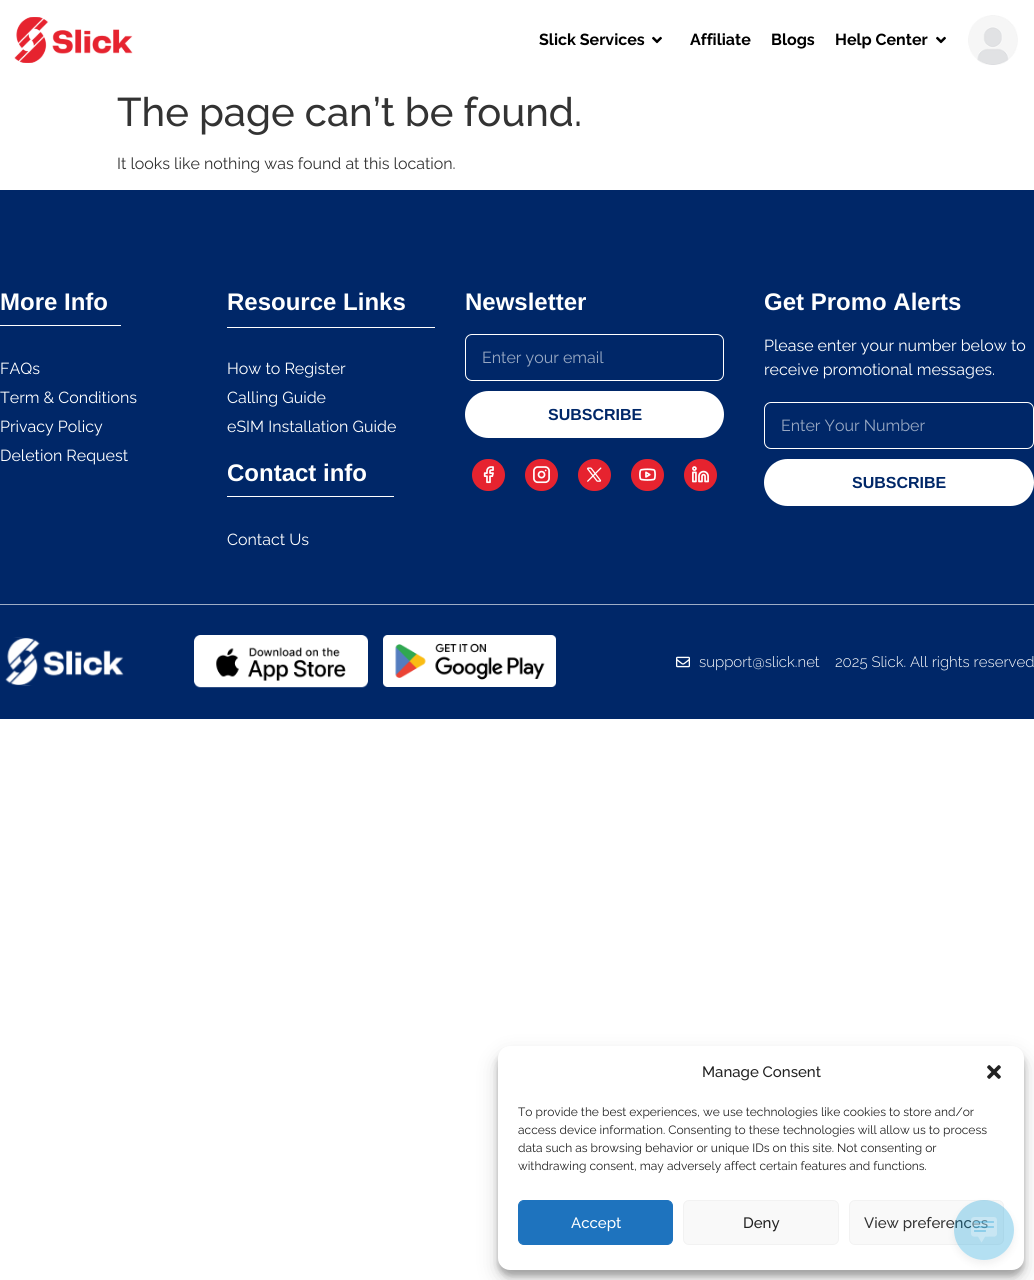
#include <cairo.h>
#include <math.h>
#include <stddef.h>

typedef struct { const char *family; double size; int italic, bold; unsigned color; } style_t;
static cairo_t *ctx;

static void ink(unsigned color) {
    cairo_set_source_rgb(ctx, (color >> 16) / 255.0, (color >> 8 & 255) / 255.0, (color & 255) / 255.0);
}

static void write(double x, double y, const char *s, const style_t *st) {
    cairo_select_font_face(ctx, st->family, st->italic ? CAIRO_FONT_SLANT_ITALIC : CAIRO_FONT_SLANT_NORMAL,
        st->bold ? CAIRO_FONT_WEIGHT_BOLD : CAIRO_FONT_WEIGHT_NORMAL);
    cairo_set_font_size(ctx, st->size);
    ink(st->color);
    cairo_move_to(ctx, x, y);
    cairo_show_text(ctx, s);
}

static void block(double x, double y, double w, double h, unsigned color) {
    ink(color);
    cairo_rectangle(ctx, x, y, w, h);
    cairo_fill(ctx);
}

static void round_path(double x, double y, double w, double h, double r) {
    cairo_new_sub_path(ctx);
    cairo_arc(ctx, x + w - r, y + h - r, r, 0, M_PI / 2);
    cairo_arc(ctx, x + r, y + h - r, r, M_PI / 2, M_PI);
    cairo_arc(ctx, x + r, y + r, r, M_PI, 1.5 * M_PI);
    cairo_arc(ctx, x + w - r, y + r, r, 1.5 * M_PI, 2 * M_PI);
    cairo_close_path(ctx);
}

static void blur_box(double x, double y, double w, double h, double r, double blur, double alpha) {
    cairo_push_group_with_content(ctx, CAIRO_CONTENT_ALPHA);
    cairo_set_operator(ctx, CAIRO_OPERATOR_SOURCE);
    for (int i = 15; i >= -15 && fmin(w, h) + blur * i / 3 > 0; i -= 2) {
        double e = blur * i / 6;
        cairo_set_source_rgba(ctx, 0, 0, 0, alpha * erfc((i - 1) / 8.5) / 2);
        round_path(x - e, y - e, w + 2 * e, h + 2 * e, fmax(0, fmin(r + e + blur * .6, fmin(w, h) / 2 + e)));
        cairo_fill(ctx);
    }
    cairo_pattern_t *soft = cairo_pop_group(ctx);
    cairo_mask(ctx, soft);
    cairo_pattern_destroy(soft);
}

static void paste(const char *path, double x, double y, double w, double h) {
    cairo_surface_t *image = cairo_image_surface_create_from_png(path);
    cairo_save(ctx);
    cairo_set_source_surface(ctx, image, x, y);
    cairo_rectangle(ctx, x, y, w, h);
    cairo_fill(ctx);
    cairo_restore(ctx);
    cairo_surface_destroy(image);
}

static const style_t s1 = {"Raleway", 16, 0, 1, 0x000000};
static const style_t s2 = {"Raleway Medium", 40, 0, 0, 0x333333};
static const style_t s3 = {"Raleway", 16, 0, 0, 0x333333};
static const style_t s4 = {"Liberation Sans", 24, 0, 1, 0xffffff};
static const style_t s5 = {"Raleway", 16, 0, 0, 0xffffff};
static const style_t s6 = {"Raleway", 16, 0, 0, 0x99a9c3};
static const style_t s7 = {"Liberation Sans", 16, 0, 1, 0x002768};
static const style_t s8 = {"Raleway Light", 15, 0, 0, 0xffffff};
static const style_t s9 = {"Raleway Medium", 15, 0, 0, 0x222222};
static const style_t s10 = {"Raleway", 12, 0, 0, 0x222222};
static const style_t s11 = {"Raleway Medium", 15, 0, 0, 0xffffff};
static const style_t s12 = {"Raleway Medium", 15, 0, 0, 0x333333};

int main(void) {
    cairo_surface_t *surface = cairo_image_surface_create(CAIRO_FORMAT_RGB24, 1034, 1280);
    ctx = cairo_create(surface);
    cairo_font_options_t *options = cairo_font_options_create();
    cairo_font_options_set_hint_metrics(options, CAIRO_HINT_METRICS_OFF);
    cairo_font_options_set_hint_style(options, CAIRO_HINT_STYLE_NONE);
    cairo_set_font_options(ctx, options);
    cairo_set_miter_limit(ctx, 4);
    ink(0xffffff);
    cairo_paint(ctx);
    paste("pic1.png", 14, 17, 119, 46);
    write(539, 45, "Slick Services", &s1);
    paste("pic2.png", 652, 36, 10, 8);
    write(690, 45, "Affiliate", &s1);
    write(771, 45, "Blogs", &s1);
    write(835, 45, "Help Center", &s1);
    paste("pic2.png", 936, 36, 10, 8);
    paste("pic3.png", 968, 15, 50, 50);
    write(117, 126, "The page can’t be found.", &s2);
    write(117, 169, "It looks like nothing was found at this location.", &s3);
    block(0, 190, 1034, 414, 0x002768);
    write(0, 310, "More Info", &s4);
    block(0, 325, 121, 1, 0xffffff);
    write(0, 374, "FAQs", &s5);
    write(0, 403, "Term & Conditions", &s5);
    write(0, 432, "Privacy Policy", &s5);
    write(0, 461, "Deletion Request", &s5);
    write(227, 310, "Resource Links", &s4);
    block(227, 327, 208, 1, 0xffffff);
    write(227, 374, "How to Register", &s5);
    write(227, 403, "Calling Guide", &s5);
    write(227, 432, "eSIM Installation Guide", &s5);
    write(227, 481, "Contact info", &s4);
    block(227, 496, 167, 1, 0xffffff);
    write(227, 545, "Contact Us", &s5);
    write(465, 310, "Newsletter", &s4);
    round_path(465.5, 334.5, 258, 46, 6.5);
    cairo_set_line_width(ctx, 1);
    cairo_stroke(ctx);
    write(482, 363, "Enter your email", &s6);
    ink(0xffffff);
    round_path(465, 391, 259, 47, 23.5);
    cairo_fill(ctx);
    write(548, 420, "SUBSCRIBE", &s7);
    paste("pic4.png", 472, 459, 33, 32);
    paste("pic5.png", 525, 459, 33, 32);
    paste("pic6.png", 578, 459, 33, 32);
    paste("pic7.png", 631, 459, 33, 32);
    paste("pic8.png", 684, 459, 33, 32);
    write(764, 310, "Get Promo Alerts", &s4);
    write(764, 351, "Please enter your number below to", &s5);
    write(764, 375, "receive promotional messages.", &s5);
    round_path(764.5, 402.5, 269, 46, 6.5);
    cairo_stroke(ctx);
    write(781, 431, "Enter Your Number", &s6);
    ink(0xffffff);
    round_path(764, 459, 270, 47, 23.5);
    cairo_fill(ctx);
    write(852, 488, "SUBSCRIBE", &s7);
    block(0, 605, 1034, 114, 0x002768);
    block(0, 604, 1034, 1, 0x9eadc6);
    paste("pic9.png", 5, 637, 119, 49);
    paste("pic10.png", 194, 635, 174, 53);
    paste("pic11.png", 383, 635, 173, 52);
    paste("pic12.png", 676, 656, 14, 12);
    write(699, 667, "support@slick.net", &s8);
    write(835, 667, "2025 Slick. All rights reserved", &s8);
    ink(0x000000);
    blur_box(498, 1052, 526, 224, 12, 3, 0.23);
    blur_box(498, 1056, 526, 224, 12, 10, 0.19);
    ink(0xffffff);
    round_path(498, 1046, 526, 224, 12);
    cairo_fill(ctx);
    write(702, 1077, "Manage Consent", &s9);
    paste("pic13.png", 987, 1065, 14, 14);
    write(518, 1116, "To provide the best experiences, we use technologies like cookies to store and/or", &s10);
    write(518, 1134, "access device information. Consenting to these technologies will allow us to process", &s10);
    write(518, 1152, "data such as browsing behavior or unique IDs on this site. Not consenting or", &s10);
    write(518, 1170, "withdrawing consent, may adversely affect certain features and functions.", &s10);
    ink(0x1e73be);
    round_path(518.5, 1200.5, 154, 44, 5.5);
    cairo_fill_preserve(ctx);
    cairo_stroke(ctx);
    write(571, 1228, "Accept", &s11);
    ink(0xf9f9f9);
    round_path(683.5, 1200.5, 155, 44, 5.5);
    cairo_fill_preserve(ctx);
    ink(0xf2f2f2);
    cairo_stroke(ctx);
    write(743, 1228, "Deny", &s9);
    ink(0xf9f9f9);
    round_path(849.5, 1200.5, 154, 44, 5.5);
    cairo_fill_preserve(ctx);
    ink(0xf2f2f2);
    cairo_stroke(ctx);
    write(864, 1228, "View preferences", &s12);
    cairo_save(ctx);
    cairo_set_fill_rule(ctx, CAIRO_FILL_RULE_EVEN_ODD);
    cairo_new_path(ctx);
    cairo_move_to(ctx, 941, 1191);
    cairo_line_to(ctx, 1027, 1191);
    cairo_line_to(ctx, 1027, 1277);
    cairo_line_to(ctx, 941, 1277);
    cairo_close_path(ctx);
    cairo_move_to(ctx, 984, 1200);
    cairo_curve_to(ctx, 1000.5, 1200, 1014, 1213.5, 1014, 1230);
    cairo_curve_to(ctx, 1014, 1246.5, 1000.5, 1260, 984, 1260);
    cairo_curve_to(ctx, 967.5, 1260, 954, 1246.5, 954, 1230);
    cairo_curve_to(ctx, 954, 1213.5, 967.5, 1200, 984, 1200);
    cairo_close_path(ctx);
    cairo_clip(ctx);
    ink(0x000000);
    blur_box(954, 1204, 60, 60, 30, 4, 0.06);
    cairo_restore(ctx);
    cairo_set_source_rgba(ctx, 0.02, 0.588, 0.831, 0.3);
    cairo_arc(ctx, 984, 1230, 30, 0, 2 * M_PI);
    cairo_fill(ctx);
    paste("pic14.png", 971, 1217, 26, 26);
    cairo_surface_write_to_png(surface, "screenshot.png");
    cairo_font_options_destroy(options);
    cairo_destroy(ctx);
    cairo_surface_destroy(surface);
    return 0;
}
